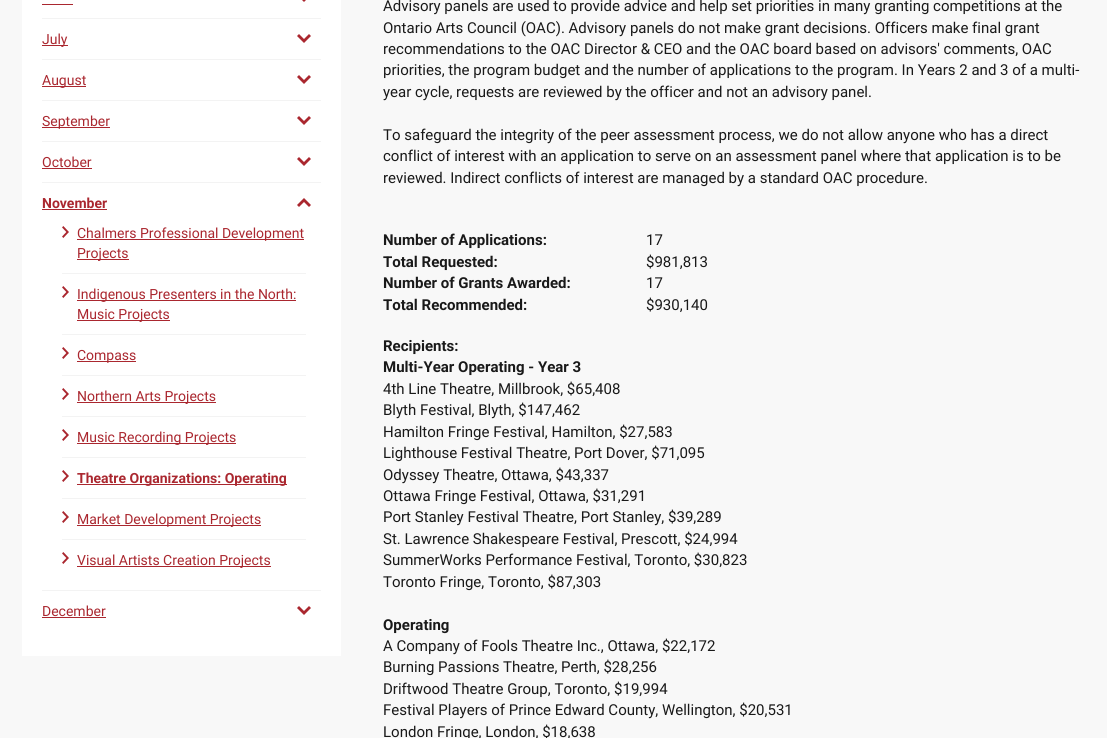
#include <cairo.h>
#include <math.h>
#include <stddef.h>

typedef struct { const char *family; double size; int italic, bold; unsigned color; } style_t;
static cairo_t *ctx;

static void ink(unsigned color) {
    cairo_set_source_rgb(ctx, (color >> 16) / 255.0, (color >> 8 & 255) / 255.0, (color & 255) / 255.0);
}

static void write(double x, double y, const char *s, const style_t *st) {
    cairo_select_font_face(ctx, st->family, st->italic ? CAIRO_FONT_SLANT_ITALIC : CAIRO_FONT_SLANT_NORMAL,
        st->bold ? CAIRO_FONT_WEIGHT_BOLD : CAIRO_FONT_WEIGHT_NORMAL);
    cairo_set_font_size(ctx, st->size);
    ink(st->color);
    cairo_move_to(ctx, x, y);
    cairo_show_text(ctx, s);
}

static void block(double x, double y, double w, double h, unsigned color) {
    ink(color);
    cairo_rectangle(ctx, x, y, w, h);
    cairo_fill(ctx);
}

static void paste(const char *path, double x, double y, double w, double h) {
    cairo_surface_t *image = cairo_image_surface_create_from_png(path);
    cairo_save(ctx);
    cairo_set_source_surface(ctx, image, x, y);
    cairo_rectangle(ctx, x, y, w, h);
    cairo_fill(ctx);
    cairo_restore(ctx);
    cairo_surface_destroy(image);
}

static const style_t s1 = {"Roboto", 14, 0, 0, 0xaa272f};
static const style_t s2 = {"Roboto", 14, 0, 1, 0xaa272f};
static const style_t s3 = {"Roboto", 15, 0, 0, 0x191919};
static const style_t s4 = {"Roboto", 15, 0, 1, 0x191919};

int main(void) {
    cairo_surface_t *surface = cairo_image_surface_create(CAIRO_FORMAT_RGB24, 1107, 738);
    ctx = cairo_create(surface);
    cairo_font_options_t *options = cairo_font_options_create();
    cairo_font_options_set_hint_metrics(options, CAIRO_HINT_METRICS_OFF);
    cairo_font_options_set_hint_style(options, CAIRO_HINT_STYLE_NONE);
    cairo_set_font_options(ctx, options);
    cairo_set_miter_limit(ctx, 4);
    ink(0xf8f8f8);
    cairo_paint(ctx);
    block(22, 0, 319, 656, 0xffffff);
    paste("pic1.png", 302, 0, 4, 2);
    block(42, 4, 31, 1, 0xaa272f);
    block(42, 18, 279, 1, 0xf3f3f3);
    block(42, 45, 26, 1, 0xaa272f);
    write(42, 44, "July", &s1);
    paste("pic2.png", 297, 34, 14, 9);
    block(42, 59, 279, 1, 0xf3f3f3);
    block(42, 86, 44, 1, 0xaa272f);
    write(42, 85, "August", &s1);
    paste("pic2.png", 297, 75, 14, 9);
    block(42, 100, 279, 1, 0xf3f3f3);
    block(42, 127, 68, 1, 0xaa272f);
    write(42, 126, "September", &s1);
    paste("pic2.png", 297, 116, 14, 9);
    block(42, 141, 279, 1, 0xf3f3f3);
    write(42, 167, "October", &s1);
    block(42, 168, 50, 1, 0xaa272f);
    paste("pic2.png", 297, 157, 14, 9);
    block(42, 182, 279, 1, 0xf3f3f3);
    write(42, 208, "November", &s2);
    block(42, 209, 65, 1, 0xaa272f);
    paste("pic3.png", 297, 198, 14, 9);
    paste("pic4.png", 62, 226, 7, 12);
    block(77, 239, 227, 1, 0xaa272f);
    write(77, 238, "Chalmers Professional Development", &s1);
    block(77, 259, 52, 1, 0xaa272f);
    write(77, 258, "Projects", &s1);
    paste("pic4.png", 62, 286, 7, 12);
    block(62, 273, 244, 1, 0xf3f3f3);
    block(77, 300, 219, 1, 0xaa272f);
    write(77, 299, "Indigenous Presenters in the North:", &s1);
    block(77, 320, 93, 1, 0xaa272f);
    write(77, 319, "Music Projects", &s1);
    paste("pic4.png", 62, 347, 7, 12);
    block(62, 334, 244, 1, 0xf3f3f3);
    block(77, 361, 59, 1, 0xaa272f);
    write(77, 360, "Compass", &s1);
    paste("pic4.png", 62, 388, 7, 12);
    block(62, 375, 244, 1, 0xf3f3f3);
    block(77, 402, 139, 1, 0xaa272f);
    write(77, 401, "Northern Arts Projects", &s1);
    paste("pic4.png", 62, 429, 7, 12);
    block(62, 416, 244, 1, 0xf3f3f3);
    block(77, 443, 159, 1, 0xaa272f);
    write(77, 442, "Music Recording Projects", &s1);
    paste("pic4.png", 62, 470, 7, 12);
    block(62, 457, 244, 1, 0xf3f3f3);
    block(77, 484, 210, 1, 0xaa272f);
    write(77, 483, "Theatre Organizations: Operating", &s2);
    paste("pic4.png", 62, 511, 7, 12);
    block(62, 498, 244, 1, 0xf3f3f3);
    block(77, 525, 184, 1, 0xaa272f);
    write(77, 524, "Market Development Projects", &s1);
    paste("pic4.png", 62, 552, 7, 12);
    block(62, 539, 244, 1, 0xf3f3f3);
    block(77, 566, 194, 1, 0xaa272f);
    write(77, 565, "Visual Artists Creation Projects", &s1);
    block(42, 590, 279, 1, 0xf3f3f3);
    write(42, 616, "December", &s1);
    block(42, 617, 64, 1, 0xaa272f);
    paste("pic2.png", 297, 606, 14, 9);
    write(383, 11, "Advisory panels are used to provide advice and help set priorities in many granting competitions at the", &s3);
    write(383, 33, "Ontario Arts Council (OAC). Advisory panels do not make grant decisions. Officers make final grant", &s3);
    write(383, 54, "recommendations to the OAC Director & CEO and the OAC board based on advisors' comments, OAC", &s3);
    write(383, 75, "priorities, the program budget and the number of applications to the program. In Years 2 and 3 of a multi-", &s3);
    write(383, 97, "year cycle, requests are reviewed by the officer and not an advisory panel.", &s3);
    write(383, 140, "To safeguard the integrity of the peer assessment process, we do not allow anyone who has a direct", &s3);
    write(383, 161, "conflict of interest with an application to serve on an assessment panel where that application is to be", &s3);
    write(383, 183, "reviewed. Indirect conflicts of interest are managed by a standard OAC procedure.", &s3);
    write(383, 245, "Number of Applications:", &s4);
    write(646, 245, "17", &s3);
    write(383, 267, "Total Requested:", &s4);
    write(646, 267, "$981,813", &s3);
    write(383, 288, "Number of Grants Awarded:", &s4);
    write(646, 288, "17", &s3);
    write(383, 310, "Total Recommended:", &s4);
    write(646, 310, "$930,140", &s3);
    write(383, 351, "Recipients:", &s4);
    write(383, 372, "Multi-Year Operating - Year 3", &s4);
    write(383, 394, "4th Line Theatre, Millbrook, $65,408", &s3);
    write(383, 415, "Blyth Festival, Blyth, $147,462", &s3);
    write(383, 437, "Hamilton Fringe Festival, Hamilton, $27,583", &s3);
    write(383, 458, "Lighthouse Festival Theatre, Port Dover, $71,095", &s3);
    write(383, 480, "Odyssey Theatre, Ottawa, $43,337", &s3);
    write(383, 501, "Ottawa Fringe Festival, Ottawa, $31,291", &s3);
    write(383, 522, "Port Stanley Festival Theatre, Port Stanley, $39,289", &s3);
    write(383, 544, "St. Lawrence Shakespeare Festival, Prescott, $24,994", &s3);
    write(383, 565, "SummerWorks Performance Festival, Toronto, $30,823", &s3);
    write(383, 587, "Toronto Fringe, Toronto, $87,303", &s3);
    write(383, 630, "Operating", &s4);
    write(383, 651, "A Company of Fools Theatre Inc., Ottawa, $22,172", &s3);
    write(383, 672, "Burning Passions Theatre, Perth, $28,256", &s3);
    write(383, 694, "Driftwood Theatre Group, Toronto, $19,994", &s3);
    write(383, 715, "Festival Players of Prince Edward County, Wellington, $20,531", &s3);
    write(383, 737, "London Fringe, London, $18,638", &s3);
    cairo_surface_write_to_png(surface, "screenshot.png");
    cairo_font_options_destroy(options);
    cairo_destroy(ctx);
    cairo_surface_destroy(surface);
    return 0;
}
